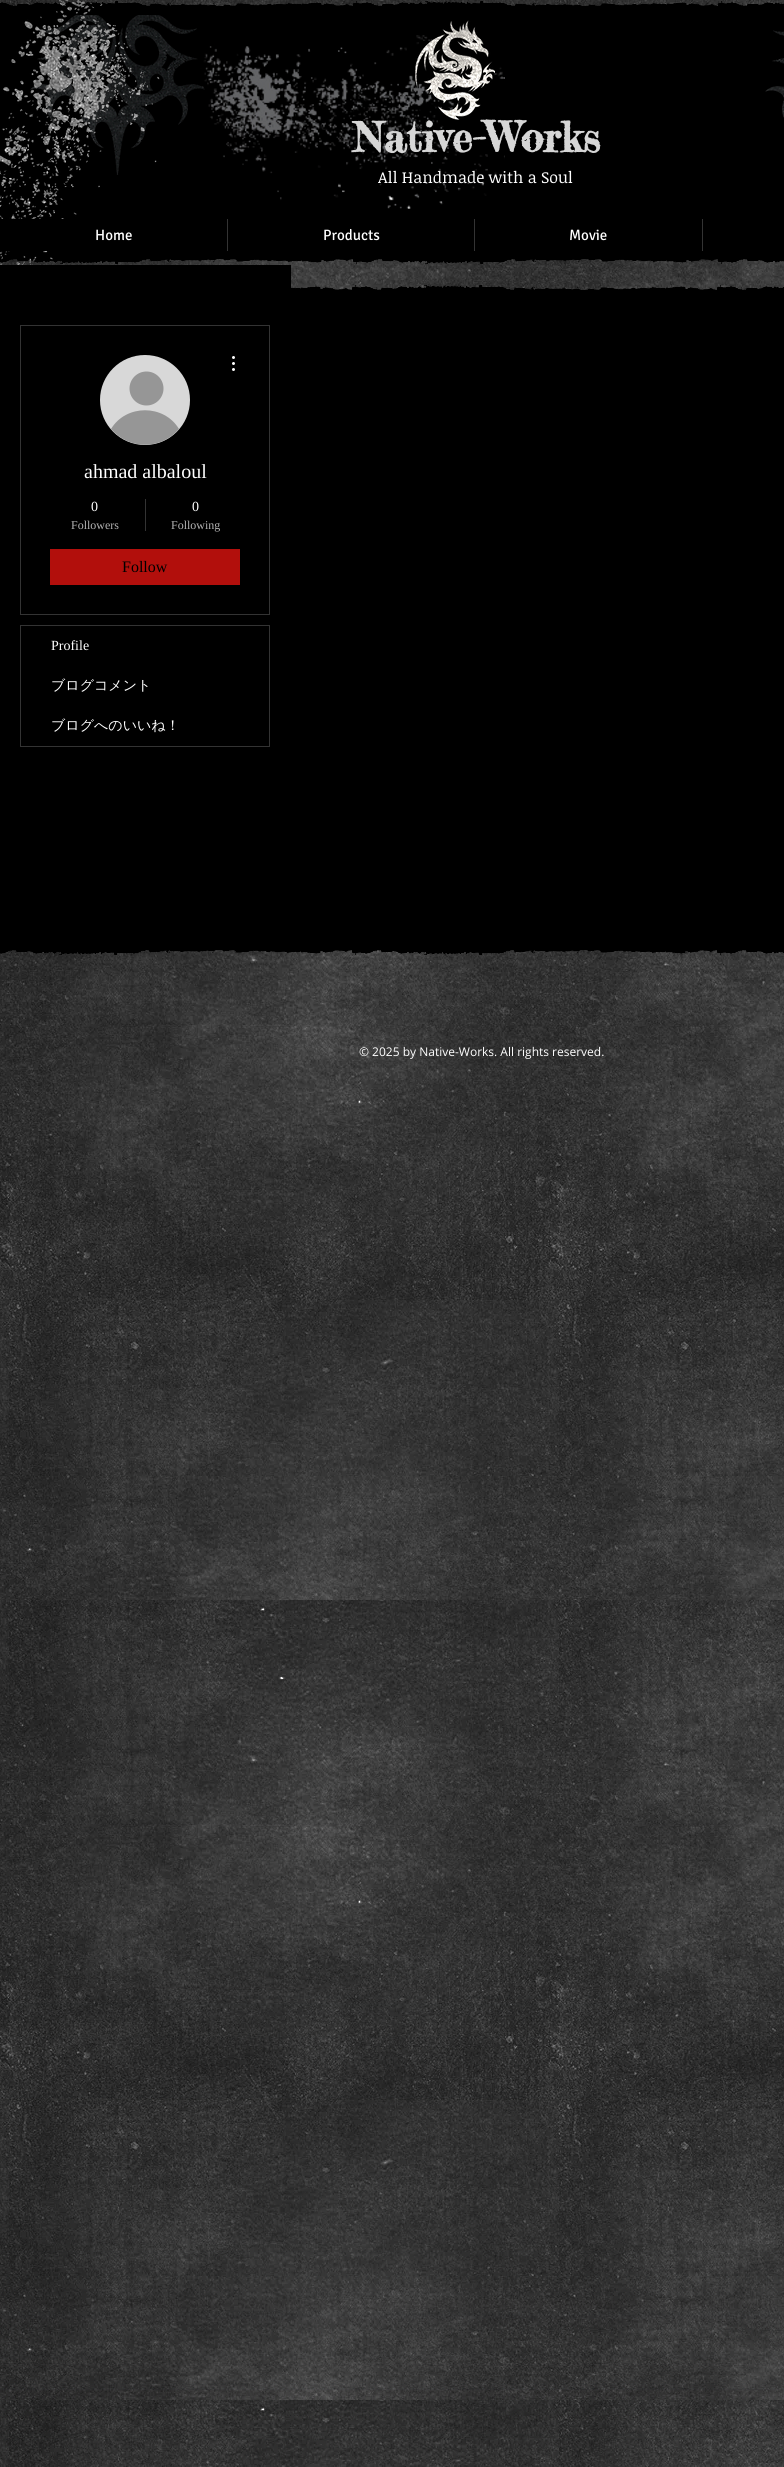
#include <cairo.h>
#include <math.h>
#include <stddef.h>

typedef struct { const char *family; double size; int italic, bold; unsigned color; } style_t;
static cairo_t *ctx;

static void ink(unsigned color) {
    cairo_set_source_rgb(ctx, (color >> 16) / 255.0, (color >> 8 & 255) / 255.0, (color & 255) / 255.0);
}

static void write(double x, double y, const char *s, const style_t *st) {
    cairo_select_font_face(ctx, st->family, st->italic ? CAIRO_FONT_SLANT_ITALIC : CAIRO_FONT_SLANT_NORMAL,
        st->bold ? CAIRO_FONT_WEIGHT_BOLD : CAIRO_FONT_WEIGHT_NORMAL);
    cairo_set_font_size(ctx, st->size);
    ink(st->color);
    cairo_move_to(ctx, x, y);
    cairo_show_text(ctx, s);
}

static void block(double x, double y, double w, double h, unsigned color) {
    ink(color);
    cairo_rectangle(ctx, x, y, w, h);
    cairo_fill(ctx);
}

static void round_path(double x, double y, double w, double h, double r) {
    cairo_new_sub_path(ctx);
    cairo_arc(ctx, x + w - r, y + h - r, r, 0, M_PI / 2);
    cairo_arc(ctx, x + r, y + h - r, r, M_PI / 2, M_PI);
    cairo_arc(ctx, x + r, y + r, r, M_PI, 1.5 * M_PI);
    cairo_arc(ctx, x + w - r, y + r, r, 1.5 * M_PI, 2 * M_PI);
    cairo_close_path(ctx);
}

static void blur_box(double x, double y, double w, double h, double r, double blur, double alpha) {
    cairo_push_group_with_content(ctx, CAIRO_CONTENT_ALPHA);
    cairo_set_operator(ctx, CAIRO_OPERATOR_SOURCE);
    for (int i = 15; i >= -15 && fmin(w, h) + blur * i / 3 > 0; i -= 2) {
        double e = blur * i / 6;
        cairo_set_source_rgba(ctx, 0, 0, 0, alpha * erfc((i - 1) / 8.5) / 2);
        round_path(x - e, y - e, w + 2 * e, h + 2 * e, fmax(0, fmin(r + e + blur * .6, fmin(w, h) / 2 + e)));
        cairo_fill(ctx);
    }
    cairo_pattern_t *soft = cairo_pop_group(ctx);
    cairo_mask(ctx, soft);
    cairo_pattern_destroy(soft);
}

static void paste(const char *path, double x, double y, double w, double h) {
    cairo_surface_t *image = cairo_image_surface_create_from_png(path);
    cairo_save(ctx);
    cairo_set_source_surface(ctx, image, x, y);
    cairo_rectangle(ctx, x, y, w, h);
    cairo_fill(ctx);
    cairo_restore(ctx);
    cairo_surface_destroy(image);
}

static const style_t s1 = {"Fredericka the Great", 41, 0, 1, 0xd6d6d6};
static const style_t s2 = {"Noticia Text", 16, 0, 0, 0xffffff};
static const style_t s3 = {"Signika", 15, 0, 0, 0xffffff};
static const style_t s4 = {"Liberation Serif", 20, 0, 0, 0xffffff};
static const style_t s5 = {"Liberation Serif", 14, 0, 0, 0xffffff};
static const style_t s6 = {"Liberation Serif", 12, 0, 0, 0xb3b3b3};
static const style_t s7 = {"Liberation Serif", 16, 0, 0, 0x000000};
static const style_t s8 = {"WenQuanYi Zen Hei Medium", 14, 0, 0, 0xffffff};
static const style_t s9 = {"Open Sans", 12, 0, 0, 0xffffff};

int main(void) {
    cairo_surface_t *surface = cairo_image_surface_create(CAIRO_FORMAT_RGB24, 784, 2467);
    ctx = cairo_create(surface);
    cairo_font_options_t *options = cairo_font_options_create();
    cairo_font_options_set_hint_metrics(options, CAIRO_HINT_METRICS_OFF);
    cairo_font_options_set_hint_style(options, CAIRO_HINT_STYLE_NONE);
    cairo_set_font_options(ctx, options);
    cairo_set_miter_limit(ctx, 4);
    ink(0xffffff);
    cairo_paint(ctx);
    paste("pic1.png", 0, 0, 784, 2467);
    block(0, 11, 784, 243, 0x000000);
    paste("pic2.png", 0, 1, 784, 10);
    paste("pic3.png", 0, 254, 784, 10);
    paste("pic8.png", 200, 35, 305, 174);
    paste("pic5.png", 30, 15, 175, 160);
    paste("pic4.png", 0, 0, 160, 265);
    paste("pic6.png", 415, 20, 80, 100);
    paste("pic7.png", 765, 30, 19, 88);
    write(353, 152, "Native-Works", &s1);
    write(378, 183, "All Handmade with a Soul", &s2);
    ink(0x000000);
    blur_box(0, 220, 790, 32, 0, 2, 0.6);
    block(0, 219, 120, 32, 0x000000);
    write(95, 240, "Home", &s3);
    block(227, 219, 1, 32, 0x333333);
    write(323, 240, "Products", &s3);
    block(474, 219, 1, 32, 0x333333);
    write(569, 240, "Movie", &s3);
    block(702, 219, 1, 32, 0x333333);
    block(3, 295, 781, 650, 0x000000);
    paste("pic9.png", 291, 285, 493, 10);
    paste("pic10.png", 0, 945, 784, 10);
    block(0, 757, 3, 188, 0x000000);
    block(0, 265, 291, 492, 0x000000);
    cairo_rectangle(ctx, 20.5, 325.5, 249, 289);
    ink(0x333333);
    cairo_set_line_width(ctx, 1);
    cairo_stroke(ctx);
    ink(0xd8d8d8);
    cairo_arc(ctx, 145, 400, 45, 0, 2 * M_PI);
    cairo_fill(ctx);
    ink(0x969696);
    cairo_arc(ctx, 146.5, 388.5, 17, 0, 2 * M_PI);
    cairo_fill(ctx);
    cairo_new_path(ctx);
    cairo_move_to(ctx, 179, 429);
    cairo_curve_to(ctx, 161, 450, 129, 450, 111, 429);
    cairo_curve_to(ctx, 126, 404, 164, 404, 179, 429);
    cairo_close_path(ctx);
    cairo_fill(ctx);
    paste("pic11.png", 232, 356, 3, 15);
    write(84, 478, "ahmad albaloul", &s4);
    write(91, 511, "0", &s5);
    write(71, 529, "Followers", &s6);
    block(145, 499, 1, 32, 0x333333);
    write(192, 511, "0", &s5);
    write(171, 529, "Following", &s6);
    block(50, 549, 190, 36, 0xb20f0c);
    write(122, 572, "Follow", &s7);
    cairo_rectangle(ctx, 20.5, 625.5, 249, 121);
    ink(0x333333);
    cairo_stroke(ctx);
    write(51, 650, "Profile", &s5);
    write(51, 690, "ブログコメント", &s8);
    write(51, 730, "ブログへのいいね！", &s8);
    write(359, 1056, "© 2025 by Native-Works. All rights reserved.", &s9);
    cairo_surface_write_to_png(surface, "screenshot.png");
    cairo_font_options_destroy(options);
    cairo_destroy(ctx);
    cairo_surface_destroy(surface);
    return 0;
}
